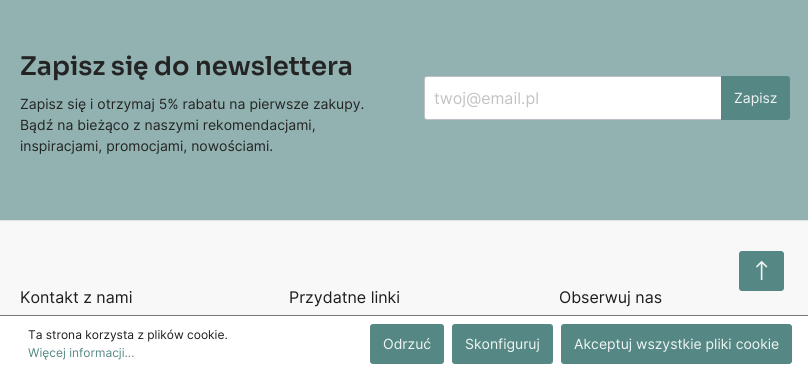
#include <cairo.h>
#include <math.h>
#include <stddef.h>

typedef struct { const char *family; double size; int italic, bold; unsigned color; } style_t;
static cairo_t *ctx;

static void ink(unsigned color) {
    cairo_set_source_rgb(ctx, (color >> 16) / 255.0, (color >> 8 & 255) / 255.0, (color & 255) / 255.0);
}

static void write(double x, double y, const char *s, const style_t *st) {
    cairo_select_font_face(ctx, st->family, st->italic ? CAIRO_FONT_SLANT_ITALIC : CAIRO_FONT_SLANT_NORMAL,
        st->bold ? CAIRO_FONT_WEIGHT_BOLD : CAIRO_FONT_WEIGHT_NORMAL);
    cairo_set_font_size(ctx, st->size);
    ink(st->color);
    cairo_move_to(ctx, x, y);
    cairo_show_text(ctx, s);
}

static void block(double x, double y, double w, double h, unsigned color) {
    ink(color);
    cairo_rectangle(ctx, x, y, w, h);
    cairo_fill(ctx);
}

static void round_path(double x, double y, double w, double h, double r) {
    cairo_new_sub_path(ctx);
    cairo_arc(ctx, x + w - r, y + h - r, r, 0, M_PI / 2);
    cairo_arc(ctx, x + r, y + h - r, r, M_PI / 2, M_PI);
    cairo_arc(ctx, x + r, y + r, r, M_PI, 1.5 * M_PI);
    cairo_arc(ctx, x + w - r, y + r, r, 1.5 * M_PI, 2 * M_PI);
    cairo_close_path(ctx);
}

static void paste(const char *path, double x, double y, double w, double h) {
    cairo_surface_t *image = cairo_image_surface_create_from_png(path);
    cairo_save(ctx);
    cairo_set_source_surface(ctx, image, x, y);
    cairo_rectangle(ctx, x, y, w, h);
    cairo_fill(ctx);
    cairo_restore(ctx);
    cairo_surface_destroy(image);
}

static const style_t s1 = {"Sora SemiBold", 25.75, 0, 0, 0x242424};
static const style_t s2 = {"Inter", 25.75, 0, 1, 0x242424};
static const style_t s3 = {"Inter", 14, 0, 0, 0x242424};
static const style_t s4 = {"Inter", 16, 0, 0, 0xc3c3c3};
static const style_t s5 = {"Inter", 14, 0, 0, 0xf0f5f3};
static const style_t s6 = {"Inter", 16, 0, 0, 0x1d1d1f};
static const style_t s7 = {"Inter", 12, 0, 0, 0x1d1d1f};
static const style_t s8 = {"Inter", 12, 0, 0, 0x558885};

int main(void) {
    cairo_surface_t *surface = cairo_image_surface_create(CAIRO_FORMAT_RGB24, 808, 372);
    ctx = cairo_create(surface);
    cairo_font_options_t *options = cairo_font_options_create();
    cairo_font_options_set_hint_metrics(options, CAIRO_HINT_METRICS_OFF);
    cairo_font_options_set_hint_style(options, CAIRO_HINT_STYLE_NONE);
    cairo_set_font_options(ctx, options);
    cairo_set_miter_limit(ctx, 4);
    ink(0x91b2b0);
    cairo_paint(ctx);
    write(20, 75, "Zapisz si", &s1);
    write(133, 75, "ę", &s2);
    write(154, 75, "do newslettera", &s1);
    write(20, 109, "Zapisz się i otrzymaj 5% rabatu na pierwsze zakupy.", &s3);
    write(20, 130, "Bądź na bieżąco z naszymi rekomendacjami,", &s3);
    write(20, 151, "inspiracjami, promocjami, nowościami.", &s3);
    ink(0xffffff);
    round_path(424.5, 76.5, 363, 43, 2.5);
    cairo_fill_preserve(ctx);
    ink(0xbcc1c7);
    cairo_set_line_width(ctx, 1);
    cairo_stroke(ctx);
    write(434, 104, "twoj@email.pl", &s4);
    ink(0x558885);
    cairo_new_path(ctx);
    cairo_move_to(ctx, 721.5, 76.5);
    cairo_line_to(ctx, 787, 76.5);
    cairo_curve_to(ctx, 788.5, 76.5, 789.5, 77.5, 789.5, 79);
    cairo_line_to(ctx, 789.5, 117);
    cairo_curve_to(ctx, 789.5, 118.5, 788.5, 119.5, 787, 119.5);
    cairo_line_to(ctx, 721.5, 119.5);
    cairo_close_path(ctx);
    cairo_fill_preserve(ctx);
    cairo_stroke(ctx);
    write(734, 103, "Zapisz", &s5);
    block(0, 221, 808, 94, 0xf8f8f8);
    ink(0x558885);
    round_path(739.5, 251.5, 44, 39, 2.5);
    cairo_fill_preserve(ctx);
    cairo_stroke(ctx);
    paste("pic1.png", 756, 261, 12, 19);
    block(0, 220, 808, 1, 0xe3e3e3);
    write(20, 303, "Kontakt z nami", &s6);
    write(289, 303, "Przydatne linki", &s6);
    write(559, 303, "Obserwuj nas", &s6);
    block(0, 316, 808, 56, 0xffffff);
    block(0, 315, 808, 1, 0x777776);
    write(28, 339, "Ta strona korzysta z plików cookie.", &s7);
    write(28, 357, "Więcej informacji...", &s8);
    round_path(370.5, 324.5, 73, 39, 2.5);
    cairo_fill_preserve(ctx);
    cairo_stroke(ctx);
    write(383, 349, "Odrzuć", &s5);
    ink(0x558885);
    round_path(452.5, 324.5, 100, 39, 2.5);
    cairo_fill_preserve(ctx);
    cairo_stroke(ctx);
    write(465, 349, "Skonfiguruj", &s5);
    ink(0x558885);
    round_path(561.5, 324.5, 230, 39, 2.5);
    cairo_fill_preserve(ctx);
    cairo_stroke(ctx);
    write(574, 349, "Akceptuj wszystkie pliki cookie", &s5);
    cairo_surface_write_to_png(surface, "screenshot.png");
    cairo_font_options_destroy(options);
    cairo_destroy(ctx);
    cairo_surface_destroy(surface);
    return 0;
}
